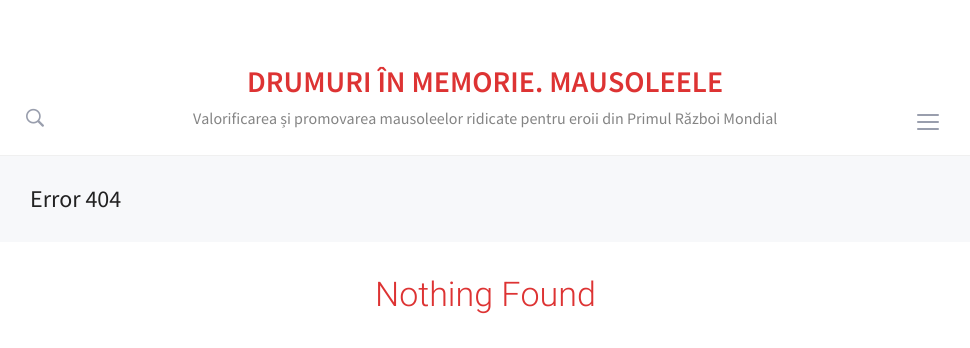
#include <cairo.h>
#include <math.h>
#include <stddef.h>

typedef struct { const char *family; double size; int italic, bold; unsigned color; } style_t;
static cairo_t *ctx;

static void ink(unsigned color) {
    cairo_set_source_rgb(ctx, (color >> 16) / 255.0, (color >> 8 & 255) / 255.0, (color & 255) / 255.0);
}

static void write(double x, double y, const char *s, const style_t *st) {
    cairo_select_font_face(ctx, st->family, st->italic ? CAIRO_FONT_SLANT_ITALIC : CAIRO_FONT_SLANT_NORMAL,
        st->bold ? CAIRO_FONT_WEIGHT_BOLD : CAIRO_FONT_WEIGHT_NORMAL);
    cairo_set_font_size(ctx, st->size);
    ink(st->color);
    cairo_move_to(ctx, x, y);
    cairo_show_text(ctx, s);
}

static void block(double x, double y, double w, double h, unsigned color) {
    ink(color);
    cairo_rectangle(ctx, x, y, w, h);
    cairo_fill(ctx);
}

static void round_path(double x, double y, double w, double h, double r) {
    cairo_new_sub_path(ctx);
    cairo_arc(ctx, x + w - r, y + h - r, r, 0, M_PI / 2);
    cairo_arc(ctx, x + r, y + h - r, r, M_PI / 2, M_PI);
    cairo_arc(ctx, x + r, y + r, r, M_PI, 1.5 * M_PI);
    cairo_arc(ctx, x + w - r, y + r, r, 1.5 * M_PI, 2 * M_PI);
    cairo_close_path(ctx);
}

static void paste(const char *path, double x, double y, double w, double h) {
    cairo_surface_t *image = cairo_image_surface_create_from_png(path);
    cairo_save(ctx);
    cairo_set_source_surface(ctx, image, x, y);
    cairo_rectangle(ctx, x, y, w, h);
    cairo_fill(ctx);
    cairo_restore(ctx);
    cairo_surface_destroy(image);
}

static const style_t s1 = {"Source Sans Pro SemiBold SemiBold", 30, 0, 0, 0xdd3333};
static const style_t s2 = {"Source Sans Pro", 16, 0, 0, 0x848484};
static const style_t s3 = {"Source Sans Pro", 24, 0, 0, 0x222222};
static const style_t s4 = {"Roboto Light", 34, 0, 0, 0xdd3333};

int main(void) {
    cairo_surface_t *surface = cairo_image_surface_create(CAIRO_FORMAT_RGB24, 970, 348);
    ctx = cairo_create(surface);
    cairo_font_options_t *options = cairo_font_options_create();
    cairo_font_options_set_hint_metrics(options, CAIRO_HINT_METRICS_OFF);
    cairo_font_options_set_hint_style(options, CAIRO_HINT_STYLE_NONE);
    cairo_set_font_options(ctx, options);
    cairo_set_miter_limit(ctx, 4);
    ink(0xffffff);
    cairo_paint(ctx);
    write(247, 92, "DRUMURI ÎN MEMORIE. MAUSOLEELE", &s1);
    write(193, 124, "Valorificarea și promovarea mausoleelor ridicate pentru eroii din Primul Război Mondial", &s2);
    paste("pic1.png", 26, 108, 18, 19);
    ink(0x999ead);
    round_path(917, 114, 22, 2, 1);
    cairo_fill(ctx);
    round_path(917, 121, 22, 2, 1);
    cairo_fill(ctx);
    round_path(917, 128, 22, 2, 1);
    cairo_fill(ctx);
    block(0, 156, 970, 86, 0xf7f8fa);
    block(0, 155, 970, 1, 0xf0f0f0);
    write(30, 207, "Error 404", &s3);
    write(375, 306, "Nothing Found", &s4);
    cairo_surface_write_to_png(surface, "screenshot.png");
    cairo_font_options_destroy(options);
    cairo_destroy(ctx);
    cairo_surface_destroy(surface);
    return 0;
}
